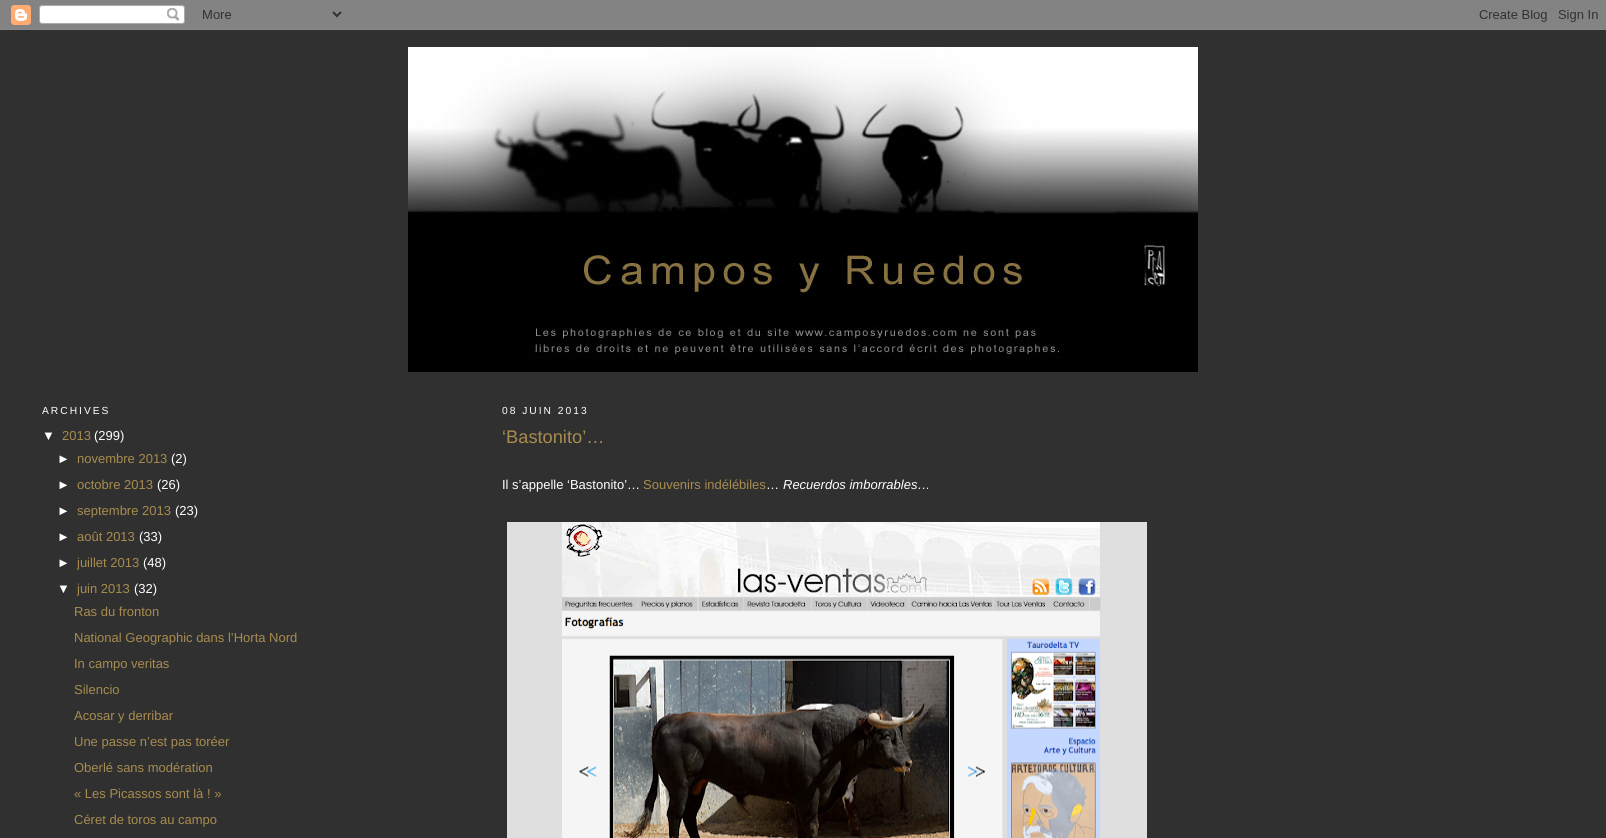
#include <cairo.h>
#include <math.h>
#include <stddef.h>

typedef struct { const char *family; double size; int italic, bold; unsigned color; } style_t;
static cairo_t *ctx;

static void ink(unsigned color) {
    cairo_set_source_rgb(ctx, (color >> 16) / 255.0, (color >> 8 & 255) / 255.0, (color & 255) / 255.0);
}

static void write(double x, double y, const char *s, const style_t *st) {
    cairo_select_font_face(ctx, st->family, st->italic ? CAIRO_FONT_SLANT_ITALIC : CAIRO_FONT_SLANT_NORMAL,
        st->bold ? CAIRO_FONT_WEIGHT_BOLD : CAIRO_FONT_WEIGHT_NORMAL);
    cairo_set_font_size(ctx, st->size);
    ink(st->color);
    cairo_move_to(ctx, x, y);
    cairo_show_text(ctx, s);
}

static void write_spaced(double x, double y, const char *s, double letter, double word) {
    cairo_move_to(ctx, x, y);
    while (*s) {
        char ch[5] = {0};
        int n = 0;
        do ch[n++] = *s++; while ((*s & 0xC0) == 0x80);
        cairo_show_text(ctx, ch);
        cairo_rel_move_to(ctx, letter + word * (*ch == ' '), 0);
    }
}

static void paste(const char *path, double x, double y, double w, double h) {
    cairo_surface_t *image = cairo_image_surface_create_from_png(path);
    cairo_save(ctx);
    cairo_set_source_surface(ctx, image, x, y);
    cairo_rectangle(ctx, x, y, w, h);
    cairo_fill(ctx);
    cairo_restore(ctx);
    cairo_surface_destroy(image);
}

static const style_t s1 = {"Liberation Sans", 13, 0, 0, 0xffffff};
static const style_t s2 = {"Liberation Sans", 13, 0, 0, 0xa88c4f};
static const style_t s3 = {"Liberation Sans", 18.25, 0, 0, 0xa88c4f};
static const style_t s4 = {"Liberation Sans", 13, 1, 0, 0xffffff};

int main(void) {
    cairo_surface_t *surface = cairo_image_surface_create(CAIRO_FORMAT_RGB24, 1606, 838);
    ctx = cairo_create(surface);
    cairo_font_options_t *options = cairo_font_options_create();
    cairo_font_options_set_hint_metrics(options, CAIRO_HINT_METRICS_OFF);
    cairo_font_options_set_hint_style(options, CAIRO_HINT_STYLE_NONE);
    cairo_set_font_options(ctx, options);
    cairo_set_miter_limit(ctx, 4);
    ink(0x303030);
    cairo_paint(ctx);
    paste("pic1.png", 0, 0, 1606, 30);
    paste("pic2.png", 408, 47, 790, 325);
    cairo_select_font_face(ctx, "Liberation Sans", CAIRO_FONT_SLANT_NORMAL, CAIRO_FONT_WEIGHT_NORMAL);
    cairo_set_font_size(ctx, 10.25);
    ink(0xffffff);
    write_spaced(42, 414, "ARCHIVES", 2, 0);
    write(42, 440, "▼", &s1);
    write(62, 440, "2013", &s2);
    write(94, 440, "(299)", &s1);
    write(57, 463, "►", &s1);
    write(77, 463, "novembre 2013", &s2);
    write(171, 463, "(2)", &s1);
    write(57, 489, "►", &s1);
    write(77, 489, "octobre 2013", &s2);
    write(157, 489, "(26)", &s1);
    write(57, 515, "►", &s1);
    write(77, 515, "septembre 2013", &s2);
    write(175, 515, "(23)", &s1);
    write(57, 541, "►", &s1);
    write(77, 541, "août 2013", &s2);
    write(139, 541, "(33)", &s1);
    write(57, 567, "►", &s1);
    write(77, 567, "juillet 2013", &s2);
    write(143, 567, "(48)", &s1);
    write(57, 593, "▼", &s1);
    write(77, 593, "juin 2013", &s2);
    write(134, 593, "(32)", &s1);
    write(74, 616, "Ras du fronton", &s2);
    write(74, 642, "National Geographic dans l’Horta Nord", &s2);
    write(74, 668, "In campo veritas", &s2);
    write(74, 694, "Silencio", &s2);
    write(74, 720, "Acosar y derribar", &s2);
    write(74, 746, "Une passe n’est pas toréer", &s2);
    write(74, 772, "Oberlé sans modération", &s2);
    write(74, 798, "« Les Picassos sont là ! »", &s2);
    write(74, 824, "Céret de toros au campo", &s2);
    cairo_set_font_size(ctx, 10.25);
    ink(0xffffff);
    write_spaced(502, 414, "08 JUIN 2013", 2, 0);
    write(502, 443, "‘Bastonito’…", &s3);
    write(502, 489, "Il s’appelle ‘Bastonito’…", &s1);
    write(643, 489, "Souvenirs indélébiles", &s2);
    write(766, 489, "…", &s1);
    write(783, 489, "Recuerdos imborrables…", &s4);
    paste("pic3.png", 507, 522, 640, 316);
    cairo_surface_write_to_png(surface, "screenshot.png");
    cairo_font_options_destroy(options);
    cairo_destroy(ctx);
    cairo_surface_destroy(surface);
    return 0;
}
